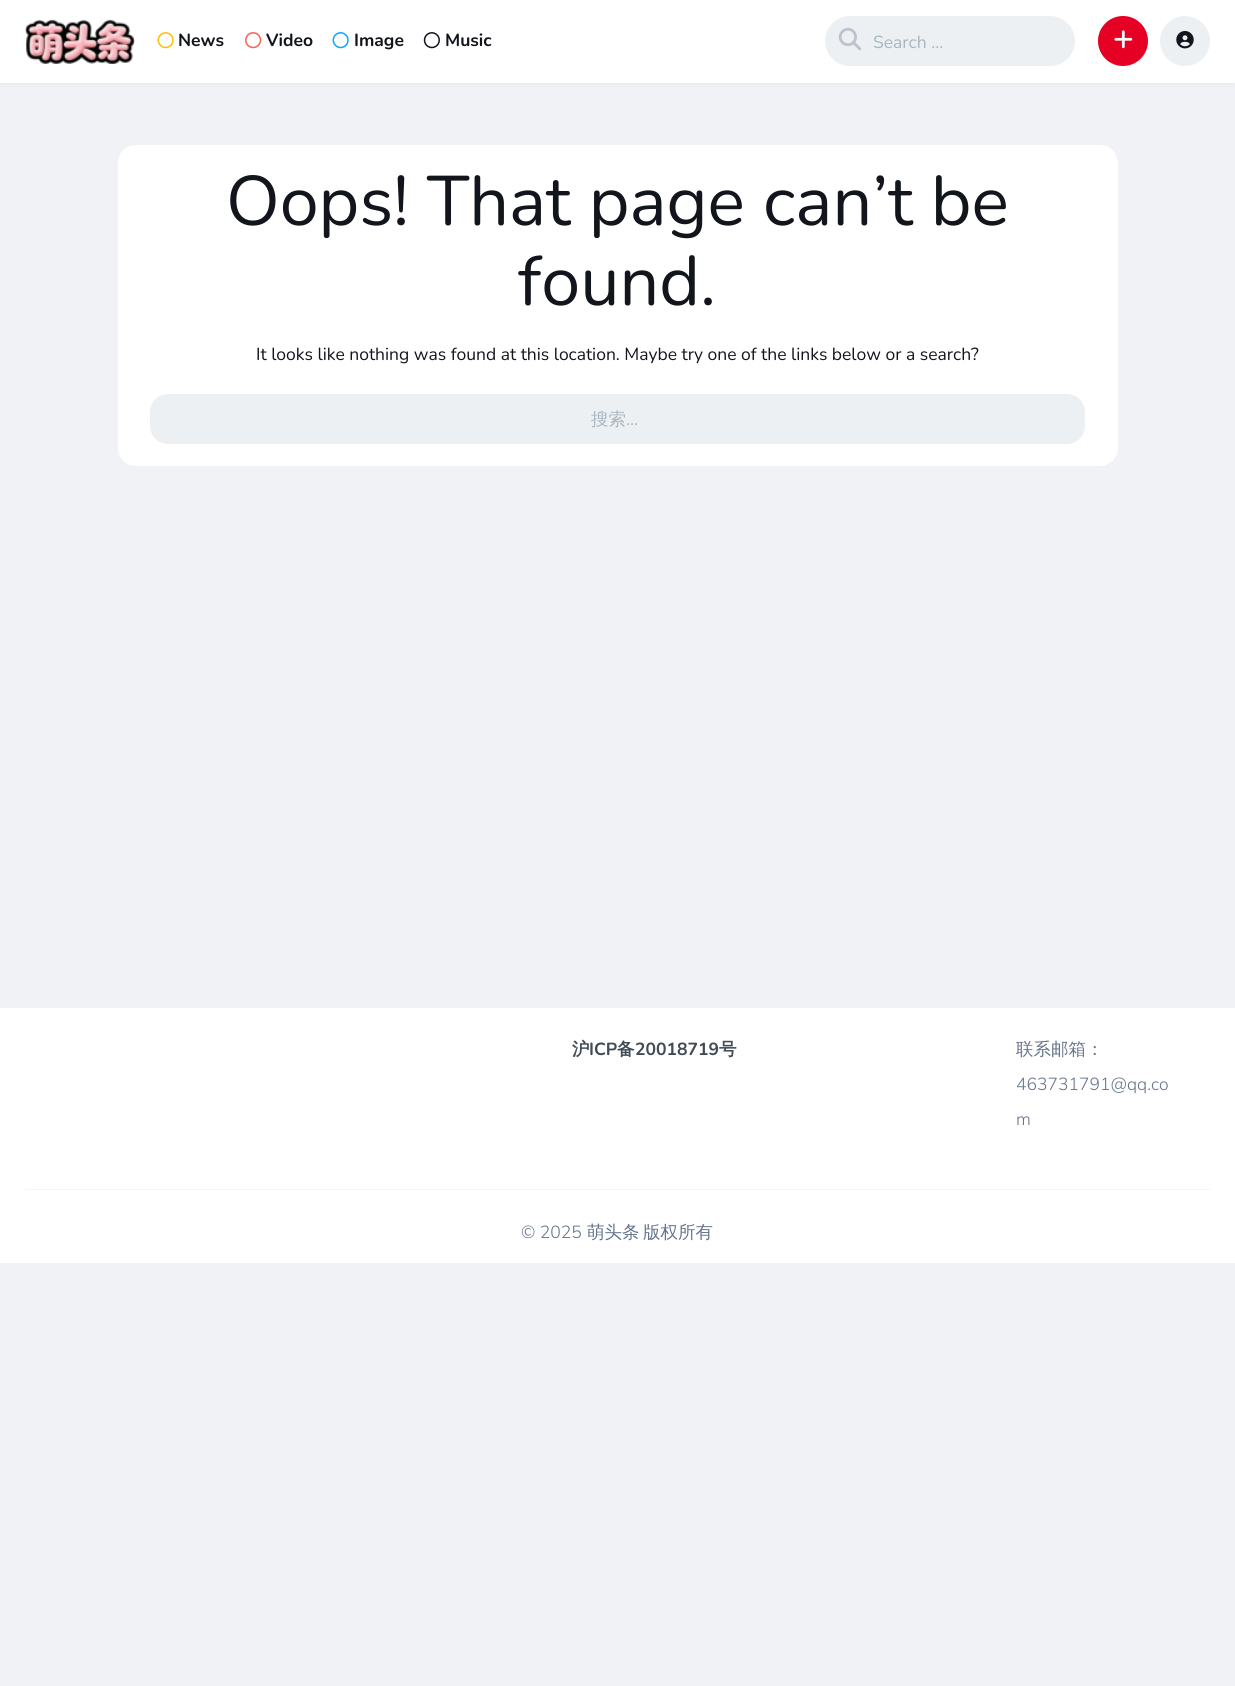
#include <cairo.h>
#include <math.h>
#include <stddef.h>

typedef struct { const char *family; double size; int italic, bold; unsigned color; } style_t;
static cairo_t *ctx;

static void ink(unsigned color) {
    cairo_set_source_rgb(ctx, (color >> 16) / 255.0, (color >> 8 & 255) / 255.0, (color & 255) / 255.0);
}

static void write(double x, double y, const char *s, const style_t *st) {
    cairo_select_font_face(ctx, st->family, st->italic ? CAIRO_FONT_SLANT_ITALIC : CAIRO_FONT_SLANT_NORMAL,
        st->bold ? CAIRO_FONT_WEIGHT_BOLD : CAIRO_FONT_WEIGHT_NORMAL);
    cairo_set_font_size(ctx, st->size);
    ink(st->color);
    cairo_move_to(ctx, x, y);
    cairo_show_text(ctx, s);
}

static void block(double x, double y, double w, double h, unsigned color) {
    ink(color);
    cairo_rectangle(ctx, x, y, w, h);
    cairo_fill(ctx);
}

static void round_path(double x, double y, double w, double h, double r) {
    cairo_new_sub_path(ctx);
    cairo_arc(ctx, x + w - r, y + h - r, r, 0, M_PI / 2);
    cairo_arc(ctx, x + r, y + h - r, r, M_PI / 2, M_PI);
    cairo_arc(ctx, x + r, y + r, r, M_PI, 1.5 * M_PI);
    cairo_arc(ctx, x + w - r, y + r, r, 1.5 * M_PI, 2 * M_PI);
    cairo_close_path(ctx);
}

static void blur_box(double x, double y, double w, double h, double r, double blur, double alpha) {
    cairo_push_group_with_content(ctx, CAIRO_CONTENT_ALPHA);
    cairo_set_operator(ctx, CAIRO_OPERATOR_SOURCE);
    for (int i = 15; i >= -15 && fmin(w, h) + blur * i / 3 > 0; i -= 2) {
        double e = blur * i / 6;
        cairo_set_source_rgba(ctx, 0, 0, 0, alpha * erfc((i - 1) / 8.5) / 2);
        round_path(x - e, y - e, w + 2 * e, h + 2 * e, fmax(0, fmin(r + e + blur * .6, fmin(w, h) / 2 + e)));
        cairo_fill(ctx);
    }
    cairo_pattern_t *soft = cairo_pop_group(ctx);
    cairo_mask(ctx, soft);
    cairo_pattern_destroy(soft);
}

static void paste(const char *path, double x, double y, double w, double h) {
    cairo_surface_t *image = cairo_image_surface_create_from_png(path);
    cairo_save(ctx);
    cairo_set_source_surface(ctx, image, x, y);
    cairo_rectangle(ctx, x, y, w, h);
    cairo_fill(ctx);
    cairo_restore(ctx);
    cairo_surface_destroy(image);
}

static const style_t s1 = {"Nunito", 17.5, 0, 1, 0x13151d};
static const style_t s2 = {"Nunito", 17.5, 0, 0, 0xa8b6c0};
static const style_t s3 = {"Nunito", 70, 0, 0, 0x13151d};
static const style_t s4 = {"Nunito", 17.5, 0, 0, 0x13151d};
static const style_t s5 = {"WenQuanYi Zen Hei Medium", 17.5, 0, 0, 0xa8b6c0};
static const style_t s6 = {"WenQuanYi Zen Hei", 17.5, 0, 1, 0x404b55};
static const style_t s7 = {"Nunito", 17.5, 0, 1, 0x404b55};
static const style_t s8 = {"WenQuanYi Zen Hei Medium", 17.5, 0, 0, 0x64748b};
static const style_t s9 = {"Nunito Light", 17.5, 0, 0, 0x64748b};

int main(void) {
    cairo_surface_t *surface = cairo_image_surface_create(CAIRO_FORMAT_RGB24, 1235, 1686);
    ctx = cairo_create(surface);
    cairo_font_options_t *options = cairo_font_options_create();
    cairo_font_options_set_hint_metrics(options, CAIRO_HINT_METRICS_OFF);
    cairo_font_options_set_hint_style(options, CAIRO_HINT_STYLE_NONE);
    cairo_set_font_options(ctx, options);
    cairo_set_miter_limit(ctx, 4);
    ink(0xf0f2f6);
    cairo_paint(ctx);
    ink(0x000000);
    blur_box(0, 1, 1235, 83, 0, 3, 0.05);
    block(0, 0, 1235, 83, 0xffffff);
    paste("pic1.png", 25, 19, 110, 45);
    paste("pic2.png", 157, 32, 17, 17);
    write(178, 46, "News", &s1);
    paste("pic3.png", 245, 32, 17, 17);
    write(266, 46, "Video", &s1);
    paste("pic4.png", 332, 32, 17, 17);
    write(354, 46, "Image", &s1);
    paste("pic5.png", 423, 32, 17, 17);
    write(445, 46, "Music", &s1);
    ink(0xedf0f3);
    round_path(825, 16, 250, 50, 25);
    cairo_fill(ctx);
    paste("pic6.png", 838, 27, 24, 24);
    write(873, 48, "Search …", &s2);
    ink(0xe60023);
    cairo_new_path(ctx);
    cairo_arc(ctx, 1123, 41, 25, 0, 2 * M_PI);
    cairo_fill(ctx);
    paste("pic7.png", 1114, 30, 19, 19);
    ink(0xedf0f3);
    cairo_arc(ctx, 1185, 41, 25, 0, 2 * M_PI);
    cairo_fill(ctx);
    paste("pic8.png", 1176, 31, 18, 18);
    ink(0xffffff);
    round_path(118, 145, 1000, 321, 18);
    cairo_fill(ctx);
    write(226, 225, "Oops! That page can’t be", &s3);
    write(518, 305, "found.", &s3);
    write(256, 360, "It looks like nothing was found at this location. Maybe try one of the links below or a search?", &s4);
    ink(0xedf0f3);
    round_path(150, 394, 935, 50, 18);
    cairo_fill(ctx);
    write(591, 425, "搜索", &s5);
    write(626, 425, "…", &s2);
    block(0, 1008, 1235, 255, 0xffffff);
    block(25, 1189, 1185, 1, 0xf5f5f5);
    write(572, 1055, "沪", &s6);
    write(589, 1055, "ICP", &s7);
    write(617, 1055, "备", &s6);
    write(635, 1055, "20018719", &s7);
    write(719, 1055, "号", &s6);
    write(1016, 1055, "联系邮箱：", &s8);
    write(1016, 1090, "463731791@qq.co", &s9);
    write(1016, 1125, "m", &s9);
    write(521, 1238, "© 2025", &s9);
    write(587, 1238, "萌头条", &s8);
    write(643, 1238, "版权所有", &s8);
    cairo_surface_write_to_png(surface, "screenshot.png");
    cairo_font_options_destroy(options);
    cairo_destroy(ctx);
    cairo_surface_destroy(surface);
    return 0;
}
